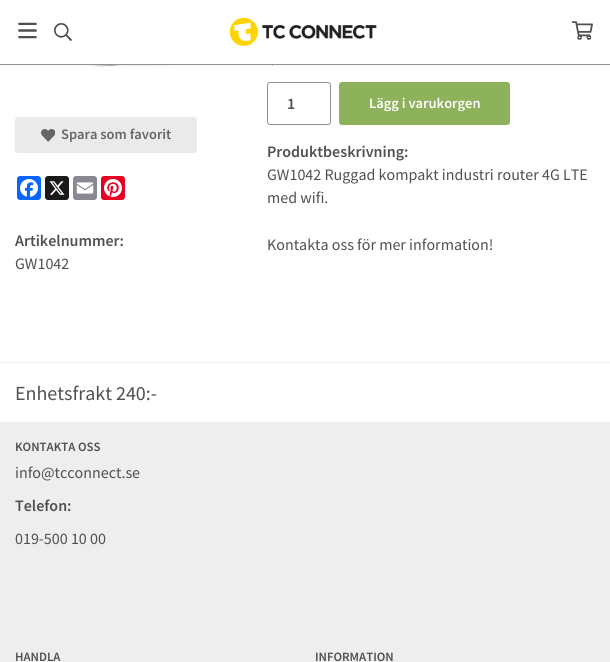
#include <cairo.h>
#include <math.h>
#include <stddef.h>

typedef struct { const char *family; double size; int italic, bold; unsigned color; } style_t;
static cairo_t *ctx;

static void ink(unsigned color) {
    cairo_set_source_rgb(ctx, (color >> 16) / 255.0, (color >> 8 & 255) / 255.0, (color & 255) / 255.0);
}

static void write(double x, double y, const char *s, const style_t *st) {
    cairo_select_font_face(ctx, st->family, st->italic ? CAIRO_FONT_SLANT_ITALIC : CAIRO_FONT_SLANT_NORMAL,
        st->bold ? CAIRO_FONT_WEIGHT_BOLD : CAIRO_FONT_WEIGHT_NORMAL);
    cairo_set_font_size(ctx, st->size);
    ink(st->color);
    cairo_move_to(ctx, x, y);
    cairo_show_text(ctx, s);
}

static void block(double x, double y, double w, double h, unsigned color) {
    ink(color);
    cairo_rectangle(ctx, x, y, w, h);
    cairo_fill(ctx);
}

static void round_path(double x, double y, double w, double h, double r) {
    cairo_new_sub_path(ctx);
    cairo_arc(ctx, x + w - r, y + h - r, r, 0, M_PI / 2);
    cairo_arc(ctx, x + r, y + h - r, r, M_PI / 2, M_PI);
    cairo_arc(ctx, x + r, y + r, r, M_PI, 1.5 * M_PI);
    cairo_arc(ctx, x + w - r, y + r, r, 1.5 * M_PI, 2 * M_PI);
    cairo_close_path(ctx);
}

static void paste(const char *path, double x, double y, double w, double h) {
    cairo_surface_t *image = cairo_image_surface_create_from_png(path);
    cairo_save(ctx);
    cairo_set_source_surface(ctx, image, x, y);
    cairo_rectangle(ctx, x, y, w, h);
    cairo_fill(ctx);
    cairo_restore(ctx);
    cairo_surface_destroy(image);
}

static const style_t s1 = {"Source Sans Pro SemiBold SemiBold", 14.5, 0, 0, 0x666666};
static const style_t s2 = {"Source Sans Pro SemiBold SemiBold", 16, 0, 0, 0x505050};
static const style_t s3 = {"Source Sans Pro", 16, 0, 0, 0x505050};
static const style_t s4 = {"Source Sans Pro SemiBold SemiBold", 14.5, 0, 0, 0xffffff};
static const style_t s5 = {"Source Sans Pro", 20, 0, 0, 0x505050};
static const style_t s6 = {"Source Sans Pro SemiBold SemiBold", 12.75, 0, 0, 0x505050};

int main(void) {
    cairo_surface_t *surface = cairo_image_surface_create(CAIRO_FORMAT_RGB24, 610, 662);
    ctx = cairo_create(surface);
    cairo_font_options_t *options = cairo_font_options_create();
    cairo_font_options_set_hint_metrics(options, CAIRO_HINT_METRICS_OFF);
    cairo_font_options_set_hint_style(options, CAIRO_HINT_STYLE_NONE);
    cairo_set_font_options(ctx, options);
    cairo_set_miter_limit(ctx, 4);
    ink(0xffffff);
    cairo_paint(ctx);
    block(0, 64, 610, 1, 0x919191);
    paste("pic1.png", 18, 22, 19, 17);
    paste("pic2.png", 54, 23, 18, 18);
    paste("pic3.png", 229, 17, 148, 30);
    paste("pic4.png", 572, 21, 21, 19);
    paste("pic5.png", 33, 65, 203, 3);
    ink(0xeaeaea);
    round_path(15, 117, 182, 36, 3);
    cairo_fill(ctx);
    paste("pic6.png", 41, 129, 14, 13);
    write(61, 139, "Spara som favorit", &s1);
    ink(0x0866ff);
    round_path(17, 176, 24, 24, 3);
    cairo_fill(ctx);
    paste("pic7.png", 20, 179, 18, 18);
    ink(0x1a1a1a);
    round_path(45, 176, 24, 24, 3);
    cairo_fill(ctx);
    paste("pic8.png", 49, 181, 16, 14);
    ink(0x888990);
    round_path(73, 176, 24, 24, 3);
    cairo_fill(ctx);
    paste("pic9.png", 76, 182, 18, 12);
    ink(0xe60023);
    round_path(101, 176, 24, 24, 3);
    cairo_fill(ctx);
    paste("pic10.png", 104, 179, 18, 18);
    write(15, 246, "Artikelnummer:", &s2);
    write(15, 269, "GW1042", &s3);
    paste("pic11.png", 271, 65, 2, 1);
    round_path(267.5, 82.5, 63, 42, 2.5);
    ink(0x919191);
    cairo_set_line_width(ctx, 1);
    cairo_stroke(ctx);
    write(287, 109, "1", &s2);
    ink(0x8db25b);
    round_path(339, 82, 171, 43, 3);
    cairo_fill(ctx);
    write(369, 108, "Lägg i varukorgen", &s4);
    write(267, 157, "Produktbeskrivning:", &s2);
    write(267, 180, "GW1042 Ruggad kompakt industri router 4G LTE", &s3);
    write(267, 203, "med wifi.", &s3);
    write(267, 250, "Kontakta oss för mer information!", &s3);
    block(0, 362, 610, 1, 0xeeeeee);
    write(15, 400, "Enhetsfrakt 240:-", &s5);
    block(0, 422, 610, 240, 0xeeeeee);
    write(15, 451, "KONTAKTA OSS", &s6);
    write(15, 478, "info@tcconnect.se", &s3);
    write(15, 511, "Telefon:", &s2);
    write(15, 544, "019-500 10 00", &s3);
    write(15, 661, "HANDLA", &s6);
    write(315, 661, "INFORMATION", &s6);
    cairo_surface_write_to_png(surface, "screenshot.png");
    cairo_font_options_destroy(options);
    cairo_destroy(ctx);
    cairo_surface_destroy(surface);
    return 0;
}
